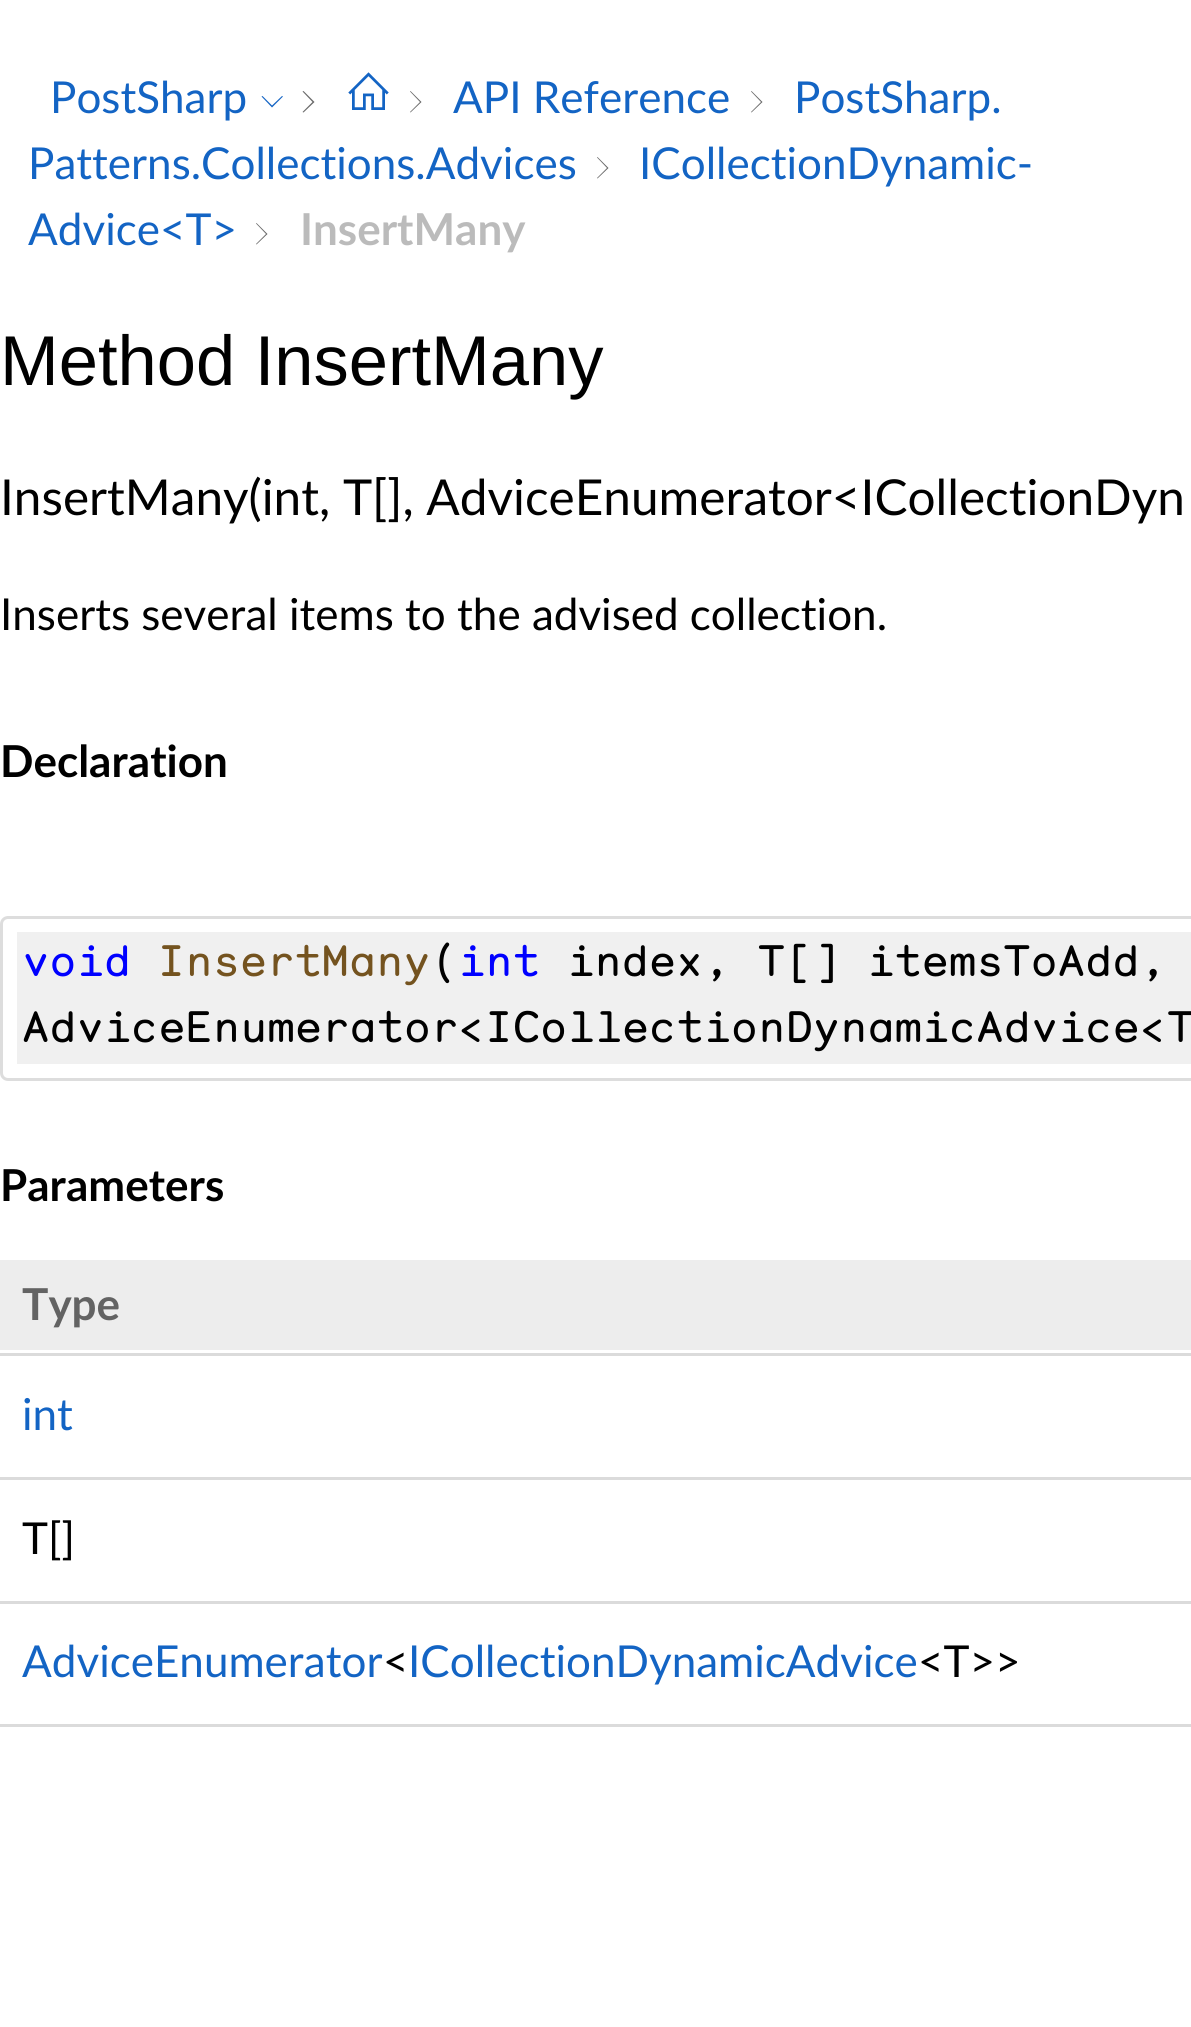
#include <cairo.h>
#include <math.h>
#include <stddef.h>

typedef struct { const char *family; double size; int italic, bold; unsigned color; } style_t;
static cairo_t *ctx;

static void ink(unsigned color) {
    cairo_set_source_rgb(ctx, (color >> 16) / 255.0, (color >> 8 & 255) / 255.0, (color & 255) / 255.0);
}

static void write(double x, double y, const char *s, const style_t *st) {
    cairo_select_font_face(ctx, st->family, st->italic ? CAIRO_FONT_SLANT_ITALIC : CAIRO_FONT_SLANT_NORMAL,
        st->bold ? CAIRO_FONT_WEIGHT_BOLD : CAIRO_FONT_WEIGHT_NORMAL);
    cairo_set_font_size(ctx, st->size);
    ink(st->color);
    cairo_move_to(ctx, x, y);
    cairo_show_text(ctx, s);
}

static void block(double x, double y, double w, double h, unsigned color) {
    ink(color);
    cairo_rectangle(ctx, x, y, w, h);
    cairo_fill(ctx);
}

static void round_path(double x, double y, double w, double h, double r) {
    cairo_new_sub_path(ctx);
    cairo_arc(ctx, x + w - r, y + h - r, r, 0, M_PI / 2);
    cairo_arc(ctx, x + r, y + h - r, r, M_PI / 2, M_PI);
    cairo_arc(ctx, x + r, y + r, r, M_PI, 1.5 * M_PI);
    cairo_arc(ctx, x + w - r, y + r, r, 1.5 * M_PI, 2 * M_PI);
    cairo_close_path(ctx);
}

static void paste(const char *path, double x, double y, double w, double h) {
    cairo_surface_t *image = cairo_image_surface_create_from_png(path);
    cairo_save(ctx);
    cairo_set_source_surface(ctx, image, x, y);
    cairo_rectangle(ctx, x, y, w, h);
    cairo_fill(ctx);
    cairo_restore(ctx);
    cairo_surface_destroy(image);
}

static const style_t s1 = {"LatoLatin", 44, 0, 0, 0x1364c4};
static const style_t s2 = {"LatoLatin", 44, 0, 1, 0xbbbbbb};
static const style_t s3 = {"Liberation Sans", 70.5, 0, 0, 0x000000};
static const style_t s4 = {"LatoLatin", 49.5, 0, 0, 0x000000};
static const style_t s5 = {"LatoLatin", 44, 0, 0, 0x000000};
static const style_t s6 = {"LatoLatin", 44, 0, 1, 0x000000};
static const style_t s7 = {"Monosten", 44, 0, 0, 0x0000ff};
static const style_t s8 = {"Monosten", 44, 0, 0, 0x74531f};
static const style_t s9 = {"Monosten", 44, 0, 0, 0x000000};
static const style_t s10 = {"LatoLatin", 44, 0, 1, 0x636363};

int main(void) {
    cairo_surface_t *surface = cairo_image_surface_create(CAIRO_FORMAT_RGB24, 1191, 2027);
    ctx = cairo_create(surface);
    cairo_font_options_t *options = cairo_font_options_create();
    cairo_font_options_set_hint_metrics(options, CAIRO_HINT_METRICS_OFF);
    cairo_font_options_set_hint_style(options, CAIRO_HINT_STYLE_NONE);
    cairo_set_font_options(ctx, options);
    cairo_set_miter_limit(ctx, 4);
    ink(0xffffff);
    cairo_paint(ctx);
    write(50, 113, "PostSharp", &s1);
    cairo_new_path(ctx);
    cairo_move_to(ctx, 272, 105.5);
    cairo_line_to(ctx, 282, 96);
    cairo_line_to(ctx, 283, 96.5);
    cairo_line_to(ctx, 272, 107.5);
    cairo_line_to(ctx, 261.5, 96.5);
    cairo_line_to(ctx, 262.5, 96);
    cairo_close_path(ctx);
    cairo_fill(ctx);
    ink(0x696969);
    cairo_new_path(ctx);
    cairo_move_to(ctx, 302.5, 112);
    cairo_line_to(ctx, 312.5, 102);
    cairo_line_to(ctx, 302.5, 91.5);
    cairo_line_to(ctx, 303.5, 91);
    cairo_line_to(ctx, 314.5, 102);
    cairo_line_to(ctx, 303.5, 112.5);
    cairo_close_path(ctx);
    cairo_fill(ctx);
    paste("pic1.png", 348, 72, 41, 38);
    cairo_new_path(ctx);
    cairo_move_to(ctx, 410, 112);
    cairo_line_to(ctx, 420, 102);
    cairo_line_to(ctx, 410, 91.5);
    cairo_line_to(ctx, 410.5, 91);
    cairo_line_to(ctx, 421.5, 102);
    cairo_line_to(ctx, 410.5, 112.5);
    cairo_close_path(ctx);
    cairo_fill(ctx);
    write(453, 113, "API Reference", &s1);
    ink(0x696969);
    cairo_new_path(ctx);
    cairo_move_to(ctx, 751, 112);
    cairo_line_to(ctx, 761, 102);
    cairo_line_to(ctx, 751, 91.5);
    cairo_line_to(ctx, 751.5, 91);
    cairo_line_to(ctx, 762.5, 102);
    cairo_line_to(ctx, 751.5, 112.5);
    cairo_close_path(ctx);
    cairo_fill(ctx);
    write(794, 113, "PostSharp.", &s1);
    write(28, 179, "Patterns.Collections.Advices", &s1);
    ink(0x696969);
    cairo_new_path(ctx);
    cairo_move_to(ctx, 597, 178);
    cairo_line_to(ctx, 607, 168);
    cairo_line_to(ctx, 597, 157.5);
    cairo_line_to(ctx, 597.5, 157);
    cairo_line_to(ctx, 608.5, 168);
    cairo_line_to(ctx, 597.5, 178.5);
    cairo_close_path(ctx);
    cairo_fill(ctx);
    write(639, 179, "ICollectionDynamic-", &s1);
    write(28, 245, "Advice<T>", &s1);
    ink(0x696969);
    cairo_new_path(ctx);
    cairo_move_to(ctx, 256, 244);
    cairo_line_to(ctx, 266, 234);
    cairo_line_to(ctx, 256, 223.5);
    cairo_line_to(ctx, 256.5, 223);
    cairo_line_to(ctx, 267.5, 234);
    cairo_line_to(ctx, 256.5, 244.5);
    cairo_close_path(ctx);
    cairo_fill(ctx);
    write(300, 245, "InsertMany", &s2);
    write(0, 385, "Method InsertMany", &s3);
    write(0, 515, "InsertMany(int, T[], AdviceEnumerator<ICollectionDyn", &s4);
    write(0, 630, "Inserts several items to the advised collection.", &s5);
    write(0, 777, "Declaration", &s6);
    round_path(1.5, 917.5, 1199, 162, 6.5);
    ink(0xdddddd);
    cairo_set_line_width(ctx, 3);
    cairo_stroke(ctx);
    block(17, 932, 1174, 132, 0xf0f0f0);
    write(22, 976, "void", &s7);
    write(158, 976, "InsertMany", &s8);
    write(431, 976, "(", &s9);
    write(458, 976, "int", &s7);
    write(567, 976, "index, T[] itemsToAdd,", &s9);
    write(22, 1042, "AdviceEnumerator<ICollectionDynamicAdvice<T", &s9);
    write(0, 1201, "Parameters", &s6);
    block(0, 1260, 1191, 90, 0xededed);
    write(22, 1320, "Type", &s10);
    block(0, 1353, 1191, 3, 0xdbdbdb);
    write(22, 1430, "int", &s1);
    block(0, 1477, 1191, 3, 0xdbdbdb);
    write(22, 1554, "T[]", &s5);
    block(0, 1601, 1191, 3, 0xdbdbdb);
    write(22, 1677, "AdviceEnumerator", &s1);
    write(383, 1677, "<", &s5);
    write(408, 1677, "ICollectionDynamicAdvice", &s1);
    write(918, 1677, "<T>>", &s5);
    block(0, 1724, 1191, 3, 0xdbdbdb);
    cairo_surface_write_to_png(surface, "screenshot.png");
    cairo_font_options_destroy(options);
    cairo_destroy(ctx);
    cairo_surface_destroy(surface);
    return 0;
}
